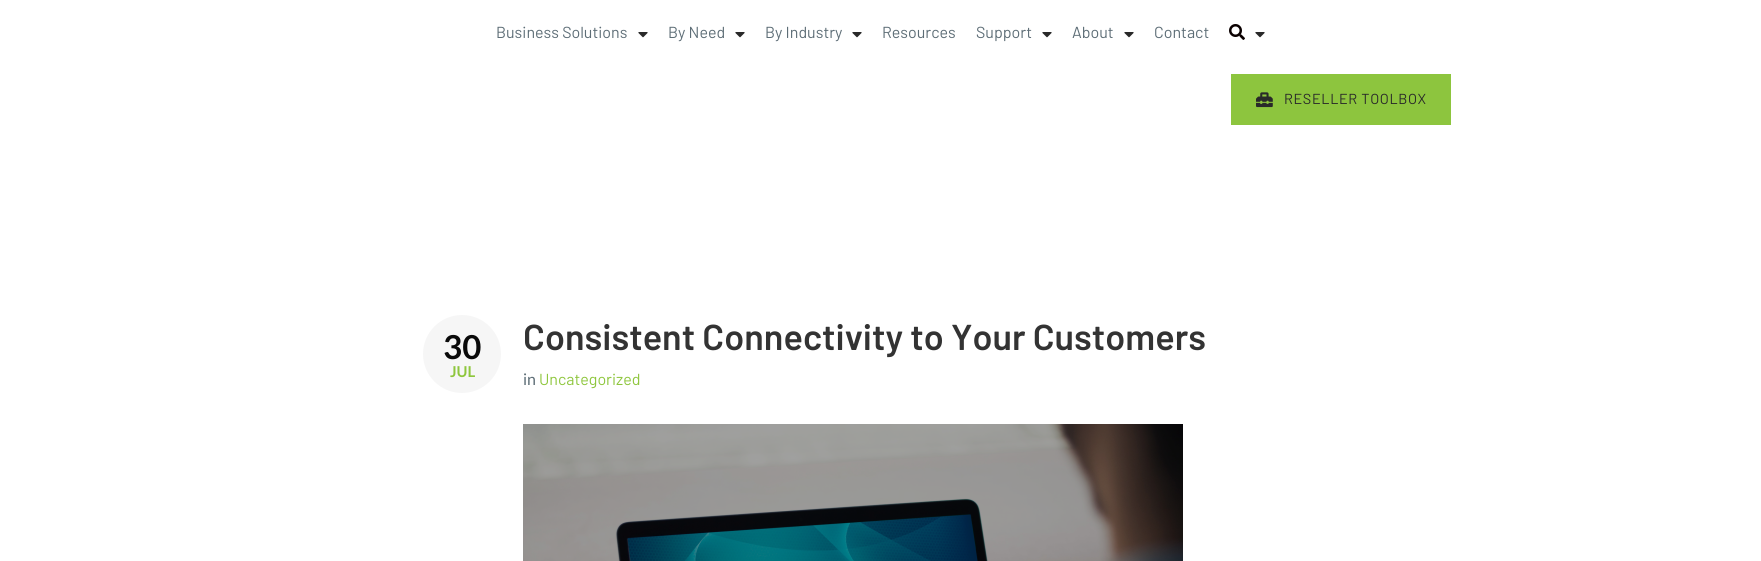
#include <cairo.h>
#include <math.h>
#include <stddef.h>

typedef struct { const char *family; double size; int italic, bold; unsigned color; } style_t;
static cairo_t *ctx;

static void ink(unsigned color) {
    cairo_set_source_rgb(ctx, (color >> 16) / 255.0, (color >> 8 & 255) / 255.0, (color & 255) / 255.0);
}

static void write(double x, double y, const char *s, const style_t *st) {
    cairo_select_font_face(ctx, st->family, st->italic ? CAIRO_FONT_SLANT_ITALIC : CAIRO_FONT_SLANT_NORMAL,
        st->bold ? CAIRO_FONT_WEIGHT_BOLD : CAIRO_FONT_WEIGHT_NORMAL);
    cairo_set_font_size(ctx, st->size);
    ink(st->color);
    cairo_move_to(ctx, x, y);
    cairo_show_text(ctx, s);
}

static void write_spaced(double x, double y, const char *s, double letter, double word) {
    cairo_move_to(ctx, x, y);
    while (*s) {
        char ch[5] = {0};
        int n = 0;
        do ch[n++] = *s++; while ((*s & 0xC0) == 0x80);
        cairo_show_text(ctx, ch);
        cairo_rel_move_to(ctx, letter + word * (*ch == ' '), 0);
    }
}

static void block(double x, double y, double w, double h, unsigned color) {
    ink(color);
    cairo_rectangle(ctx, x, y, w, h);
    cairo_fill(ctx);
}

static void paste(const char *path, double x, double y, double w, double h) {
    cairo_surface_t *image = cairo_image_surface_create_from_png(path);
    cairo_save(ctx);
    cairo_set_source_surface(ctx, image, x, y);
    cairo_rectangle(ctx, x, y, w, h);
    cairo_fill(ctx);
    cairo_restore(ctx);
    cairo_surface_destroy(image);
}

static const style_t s1 = {"Barlow", 16, 0, 0, 0x5d6d76};
static const style_t s2 = {"Lato", 33, 0, 1, 0x0a0a0a};
static const style_t s3 = {"Lato", 15, 0, 1, 0x8ec63d};
static const style_t s4 = {"Barlow SemiBold", 36, 0, 0, 0x333333};
static const style_t s5 = {"Lato", 16, 0, 0, 0x5d6d76};
static const style_t s6 = {"Barlow", 16, 0, 0, 0x8ec63d};

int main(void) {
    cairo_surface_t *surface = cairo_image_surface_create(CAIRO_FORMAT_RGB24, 1761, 561);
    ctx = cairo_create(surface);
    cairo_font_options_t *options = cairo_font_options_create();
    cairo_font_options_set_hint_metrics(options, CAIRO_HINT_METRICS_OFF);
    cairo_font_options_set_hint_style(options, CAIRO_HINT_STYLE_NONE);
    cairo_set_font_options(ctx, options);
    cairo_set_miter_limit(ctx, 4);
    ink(0xffffff);
    cairo_paint(ctx);
    write(496, 38, "Business Solutions", &s1);
    paste("pic1.png", 638, 32, 10, 6);
    write(668, 38, "By Need", &s1);
    paste("pic1.png", 735, 32, 10, 6);
    write(765, 38, "By Industry", &s1);
    paste("pic1.png", 852, 32, 10, 6);
    write(882, 38, "Resources", &s1);
    write(976, 38, "Support", &s1);
    paste("pic1.png", 1042, 32, 10, 6);
    write(1072, 38, "About", &s1);
    paste("pic1.png", 1124, 32, 10, 6);
    write(1154, 38, "Contact", &s1);
    paste("pic2.png", 1229, 24, 16, 16);
    paste("pic1.png", 1255, 32, 10, 6);
    block(1231, 74, 220, 51, 0x8dc53e);
    paste("pic3.png", 1256, 92, 17, 16);
    cairo_set_font_size(ctx, 14.5);
    ink(0x292929);
    write_spaced(1284, 104, "RESELLER TOOLBOX", 0.6, 0);
    ink(0xf6f6f6);
    cairo_new_path(ctx);
    cairo_arc(ctx, 462, 354, 39, 0, 2 * M_PI);
    cairo_fill(ctx);
    write(443, 359, "30", &s2);
    write(450, 377, "JUL", &s3);
    write(523, 350, "Consistent Connectivity to Your Customers", &s4);
    write(523, 385, "in", &s5);
    write(539, 385, "Uncategorized", &s6);
    paste("pic4.png", 523, 424, 660, 137);
    cairo_surface_write_to_png(surface, "screenshot.png");
    cairo_font_options_destroy(options);
    cairo_destroy(ctx);
    cairo_surface_destroy(surface);
    return 0;
}
